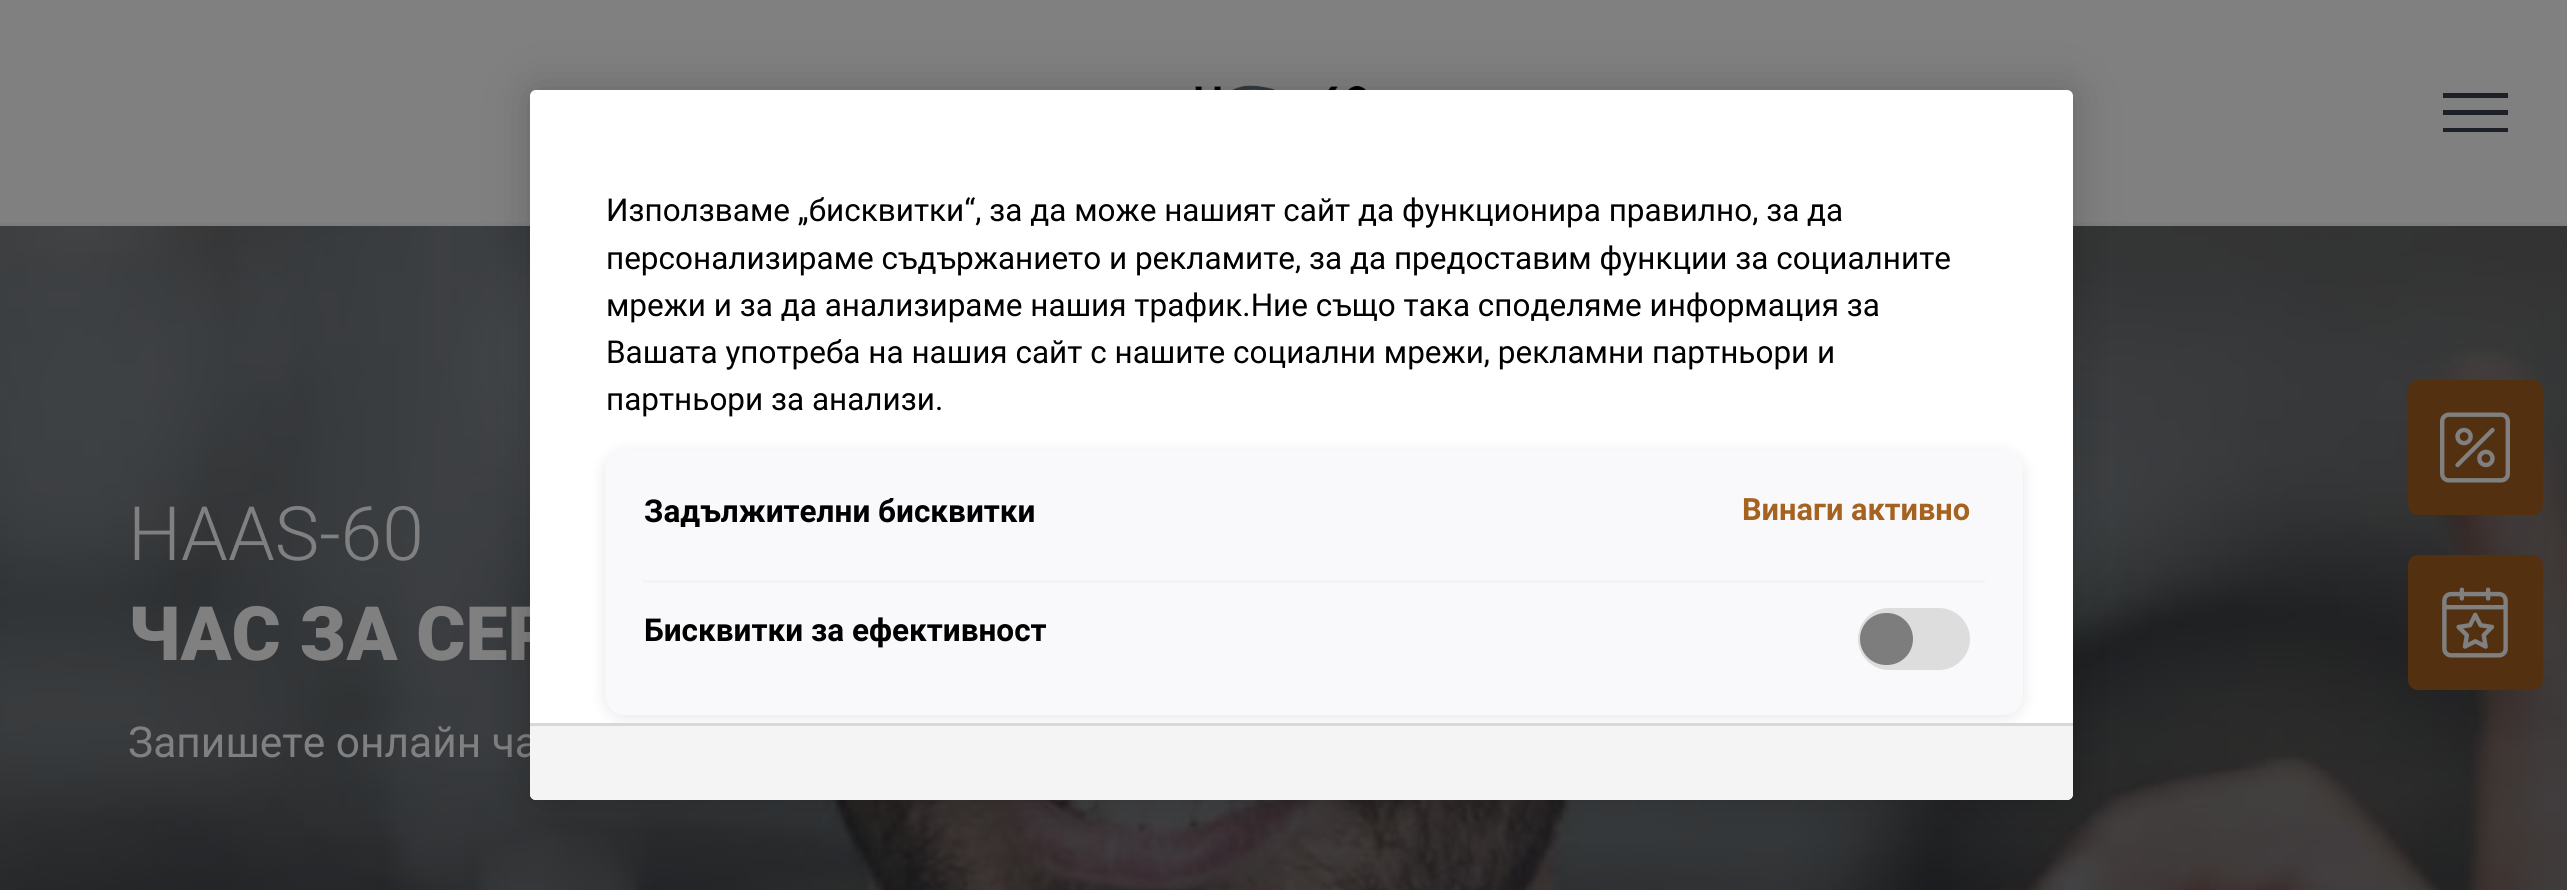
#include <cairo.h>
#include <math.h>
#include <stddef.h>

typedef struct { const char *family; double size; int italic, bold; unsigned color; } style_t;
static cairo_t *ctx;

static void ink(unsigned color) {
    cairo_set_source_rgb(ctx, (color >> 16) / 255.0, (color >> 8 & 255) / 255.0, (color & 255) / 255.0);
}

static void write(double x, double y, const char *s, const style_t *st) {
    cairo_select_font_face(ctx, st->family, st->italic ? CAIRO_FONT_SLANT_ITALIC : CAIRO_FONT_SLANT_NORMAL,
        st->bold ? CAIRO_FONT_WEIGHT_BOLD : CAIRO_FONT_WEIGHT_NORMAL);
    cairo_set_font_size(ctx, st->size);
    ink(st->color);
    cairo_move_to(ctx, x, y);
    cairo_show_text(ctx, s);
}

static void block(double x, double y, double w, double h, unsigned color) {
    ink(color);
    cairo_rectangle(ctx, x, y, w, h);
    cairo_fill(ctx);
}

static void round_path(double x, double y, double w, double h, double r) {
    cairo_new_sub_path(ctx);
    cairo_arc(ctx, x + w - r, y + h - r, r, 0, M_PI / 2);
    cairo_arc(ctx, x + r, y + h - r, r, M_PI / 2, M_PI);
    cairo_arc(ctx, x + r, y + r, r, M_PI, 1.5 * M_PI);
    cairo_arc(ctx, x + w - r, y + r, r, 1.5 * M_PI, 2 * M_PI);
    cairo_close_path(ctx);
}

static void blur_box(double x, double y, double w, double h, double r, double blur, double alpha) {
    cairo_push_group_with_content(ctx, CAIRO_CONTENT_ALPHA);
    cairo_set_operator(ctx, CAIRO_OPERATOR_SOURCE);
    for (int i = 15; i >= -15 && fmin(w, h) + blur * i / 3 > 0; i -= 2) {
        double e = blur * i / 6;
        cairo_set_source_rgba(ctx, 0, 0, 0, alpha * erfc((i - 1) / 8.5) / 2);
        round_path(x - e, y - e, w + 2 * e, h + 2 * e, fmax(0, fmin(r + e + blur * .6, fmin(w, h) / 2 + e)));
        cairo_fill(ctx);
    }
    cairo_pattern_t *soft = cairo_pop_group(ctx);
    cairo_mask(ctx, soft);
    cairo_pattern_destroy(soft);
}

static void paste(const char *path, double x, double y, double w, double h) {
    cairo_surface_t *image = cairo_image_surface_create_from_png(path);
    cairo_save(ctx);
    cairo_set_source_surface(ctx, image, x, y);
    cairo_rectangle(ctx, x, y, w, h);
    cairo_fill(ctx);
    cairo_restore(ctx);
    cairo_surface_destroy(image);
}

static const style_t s1 = {"Roboto Light", 75, 0, 0, 0x808080};
static const style_t s2 = {"Roboto Black", 75, 0, 0, 0x808080};
static const style_t s3 = {"Roboto", 42.5, 0, 0, 0x808080};
static const style_t s4 = {"Roboto", 31.5, 0, 0, 0x000000};
static const style_t s5 = {"Roboto", 31.5, 0, 1, 0x000000};
static const style_t s6 = {"Roboto", 30.75, 0, 1, 0xa6621f};

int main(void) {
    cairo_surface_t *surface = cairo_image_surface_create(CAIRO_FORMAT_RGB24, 2567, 890);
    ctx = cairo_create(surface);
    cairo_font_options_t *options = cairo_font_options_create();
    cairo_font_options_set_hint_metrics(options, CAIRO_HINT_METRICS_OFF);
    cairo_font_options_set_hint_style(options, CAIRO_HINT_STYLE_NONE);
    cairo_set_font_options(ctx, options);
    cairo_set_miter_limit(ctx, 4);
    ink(0xffffff);
    cairo_paint(ctx);
    block(0, 0, 2567, 223, 0x808080);
    block(0, 223, 2567, 3, 0x7c7d7d);
    paste("pic1.png", 1195, 85, 178, 5);
    cairo_save(ctx);
    cairo_rectangle(ctx, 2443, 93, 65, 40);
    cairo_clip(ctx);
    ink(0x1d2127);
    cairo_set_fill_rule(ctx, CAIRO_FILL_RULE_EVEN_ODD);
    cairo_new_path(ctx);
    cairo_move_to(ctx, 2508, 128);
    cairo_line_to(ctx, 2508, 132);
    cairo_line_to(ctx, 2442, 132);
    cairo_line_to(ctx, 2442, 128);
    cairo_close_path(ctx);
    cairo_move_to(ctx, 2508, 110);
    cairo_line_to(ctx, 2508, 115);
    cairo_line_to(ctx, 2442, 115);
    cairo_line_to(ctx, 2442, 110);
    cairo_close_path(ctx);
    cairo_move_to(ctx, 2508, 92);
    cairo_line_to(ctx, 2508, 98);
    cairo_line_to(ctx, 2442, 98);
    cairo_line_to(ctx, 2442, 92);
    cairo_close_path(ctx);
    cairo_fill(ctx);
    cairo_restore(ctx);
    paste("pic2.png", 0, 226, 2567, 664);
    write(128, 560, "HAAS-60", &s1);
    write(128, 660, "ЧАС ЗА СЕР", &s2);
    write(128, 757, "Запишете онлайн ча", &s3);
    ink(0x533110);
    round_path(2408, 380, 135, 135, 10);
    cairo_fill(ctx);
    paste("pic3.png", 2440, 412, 70, 71);
    round_path(2408, 555, 135, 135, 10);
    cairo_fill(ctx);
    paste("pic4.png", 2442, 587, 66, 71);
    ink(0x000000);
    blur_box(530, 90, 1543, 710, 6, 22.5, 0.2);
    ink(0xffffff);
    round_path(530, 90, 1543, 710, 6);
    cairo_fill(ctx);
    write(606, 221, "Използваме „бисквитки“, за да може нашият сайт да функционира правилно, за да", &s4);
    write(606, 269, "персонализираме съдържанието и рекламите, за да предоставим функции за социалните", &s4);
    write(606, 316, "мрежи и за да анализираме нашия трафик.Ние също така споделяме информация за", &s4);
    write(606, 363, "Вашата употреба на нашия сайт с нашите социални мрежи, рекламни партньори и", &s4);
    write(606, 410, "партньори за анализи.", &s4);
    ink(0x000000);
    blur_box(605, 453, 1418, 265, 20, 7.5, 0.1);
    ink(0xf9f9fc);
    round_path(605, 450, 1418, 265, 20);
    cairo_fill(ctx);
    block(643, 580, 1342, 3, 0xf4f4f4);
    write(644, 522, "Задължителни бисквитки", &s5);
    write(1742, 520, "Винаги активно", &s6);
    write(644, 641, "Бисквитки за ефективност", &s5);
    ink(0xdddddd);
    cairo_new_path(ctx);
    cairo_move_to(ctx, 1889, 608);
    cairo_line_to(ctx, 1939, 608);
    cairo_curve_to(ctx, 1956, 608, 1970, 622, 1970, 639);
    cairo_curve_to(ctx, 1970, 656, 1956, 670, 1939, 670);
    cairo_line_to(ctx, 1889, 670);
    cairo_curve_to(ctx, 1872, 670, 1858, 656, 1858, 639);
    cairo_curve_to(ctx, 1858, 622, 1872, 608, 1889, 608);
    cairo_close_path(ctx);
    cairo_fill(ctx);
    ink(0x7d7d7d);
    round_path(1860, 613, 53, 52, 26);
    cairo_fill(ctx);
    ink(0xf4f4f4);
    cairo_new_path(ctx);
    cairo_move_to(ctx, 530, 723);
    cairo_line_to(ctx, 2073, 723);
    cairo_line_to(ctx, 2073, 794);
    cairo_curve_to(ctx, 2073, 797.5, 2070.5, 800, 2067, 800);
    cairo_line_to(ctx, 536, 800);
    cairo_curve_to(ctx, 532.5, 800, 530, 797.5, 530, 794);
    cairo_close_path(ctx);
    cairo_fill(ctx);
    block(530, 723, 1543, 3, 0xd8d8d8);
    cairo_surface_write_to_png(surface, "screenshot.png");
    cairo_font_options_destroy(options);
    cairo_destroy(ctx);
    cairo_surface_destroy(surface);
    return 0;
}
